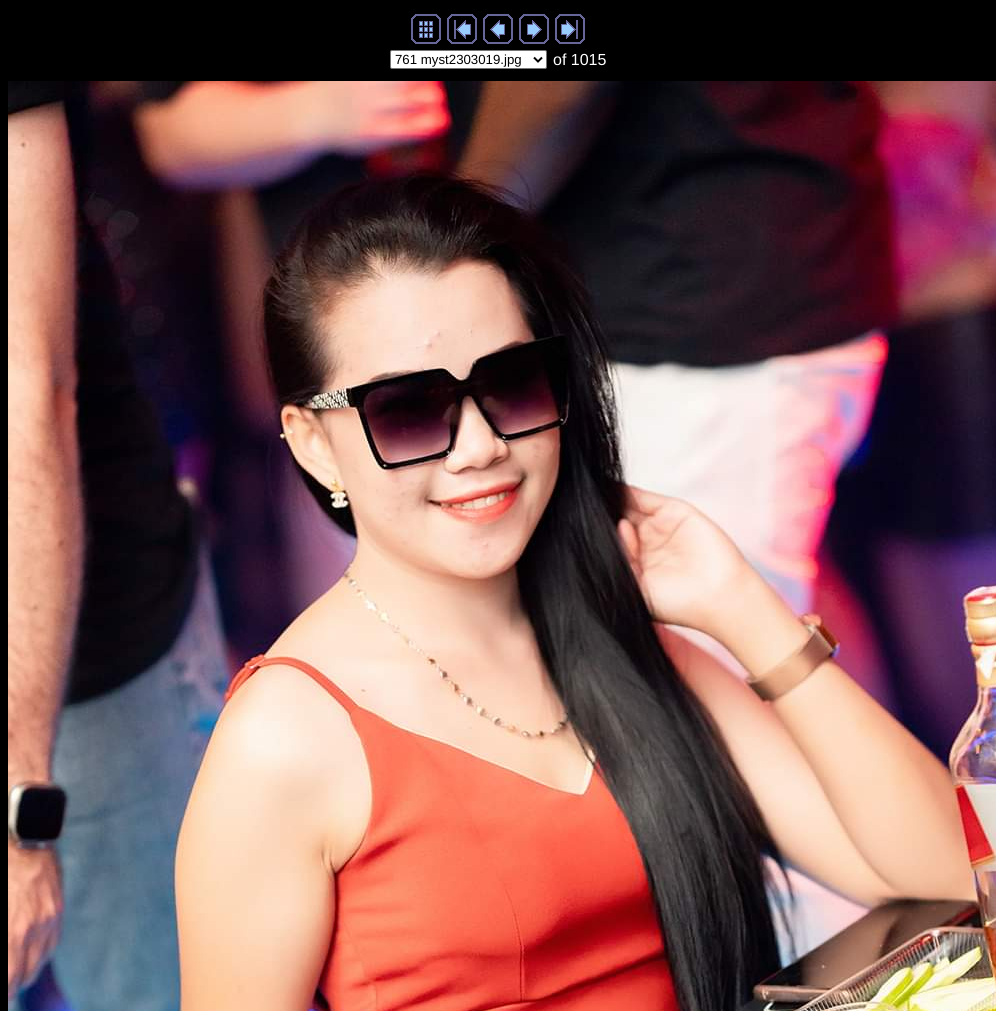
#include <cairo.h>
#include <math.h>
#include <stddef.h>

typedef struct { const char *family; double size; int italic, bold; unsigned color; } style_t;
static cairo_t *ctx;

static void ink(unsigned color) {
    cairo_set_source_rgb(ctx, (color >> 16) / 255.0, (color >> 8 & 255) / 255.0, (color & 255) / 255.0);
}

static void write(double x, double y, const char *s, const style_t *st) {
    cairo_select_font_face(ctx, st->family, st->italic ? CAIRO_FONT_SLANT_ITALIC : CAIRO_FONT_SLANT_NORMAL,
        st->bold ? CAIRO_FONT_WEIGHT_BOLD : CAIRO_FONT_WEIGHT_NORMAL);
    cairo_set_font_size(ctx, st->size);
    ink(st->color);
    cairo_move_to(ctx, x, y);
    cairo_show_text(ctx, s);
}

static void round_path(double x, double y, double w, double h, double r) {
    cairo_new_sub_path(ctx);
    cairo_arc(ctx, x + w - r, y + h - r, r, 0, M_PI / 2);
    cairo_arc(ctx, x + r, y + h - r, r, M_PI / 2, M_PI);
    cairo_arc(ctx, x + r, y + r, r, M_PI, 1.5 * M_PI);
    cairo_arc(ctx, x + w - r, y + r, r, 1.5 * M_PI, 2 * M_PI);
    cairo_close_path(ctx);
}

static void paste(const char *path, double x, double y, double w, double h) {
    cairo_surface_t *image = cairo_image_surface_create_from_png(path);
    cairo_save(ctx);
    cairo_set_source_surface(ctx, image, x, y);
    cairo_rectangle(ctx, x, y, w, h);
    cairo_fill(ctx);
    cairo_restore(ctx);
    cairo_surface_destroy(image);
}

static const style_t s1 = {"Liberation Sans", 13.25, 0, 0, 0x000000};
static const style_t s2 = {"Liberation Sans", 16, 0, 0, 0xffffff};

int main(void) {
    cairo_surface_t *surface = cairo_image_surface_create(CAIRO_FORMAT_RGB24, 996, 1011);
    ctx = cairo_create(surface);
    cairo_font_options_t *options = cairo_font_options_create();
    cairo_font_options_set_hint_metrics(options, CAIRO_HINT_METRICS_OFF);
    cairo_font_options_set_hint_style(options, CAIRO_HINT_STYLE_NONE);
    cairo_set_font_options(ctx, options);
    cairo_set_miter_limit(ctx, 4);
    ink(0x000000);
    cairo_paint(ctx);
    paste("pic1.png", 411, 14, 30, 30);
    paste("pic2.png", 447, 14, 30, 30);
    paste("pic3.png", 483, 14, 30, 30);
    paste("pic4.png", 519, 14, 30, 30);
    paste("pic5.png", 555, 14, 30, 30);
    ink(0xffffff);
    round_path(390.5, 50.5, 156, 18, 1.5);
    cairo_fill_preserve(ctx);
    ink(0x767676);
    cairo_set_line_width(ctx, 1);
    cairo_stroke(ctx);
    cairo_new_path(ctx);
    cairo_move_to(ctx, 534, 57.5);
    cairo_line_to(ctx, 538, 61.5);
    cairo_line_to(ctx, 542, 57.5);
    ink(0x000000);
    cairo_set_line_width(ctx, 2);
    cairo_stroke(ctx);
    write(395, 64, "761 myst2303019.jpg", &s1);
    write(553, 65, "of 1015", &s2);
    paste("pic6.png", 8, 81, 988, 930);
    cairo_surface_write_to_png(surface, "screenshot.png");
    cairo_font_options_destroy(options);
    cairo_destroy(ctx);
    cairo_surface_destroy(surface);
    return 0;
}
